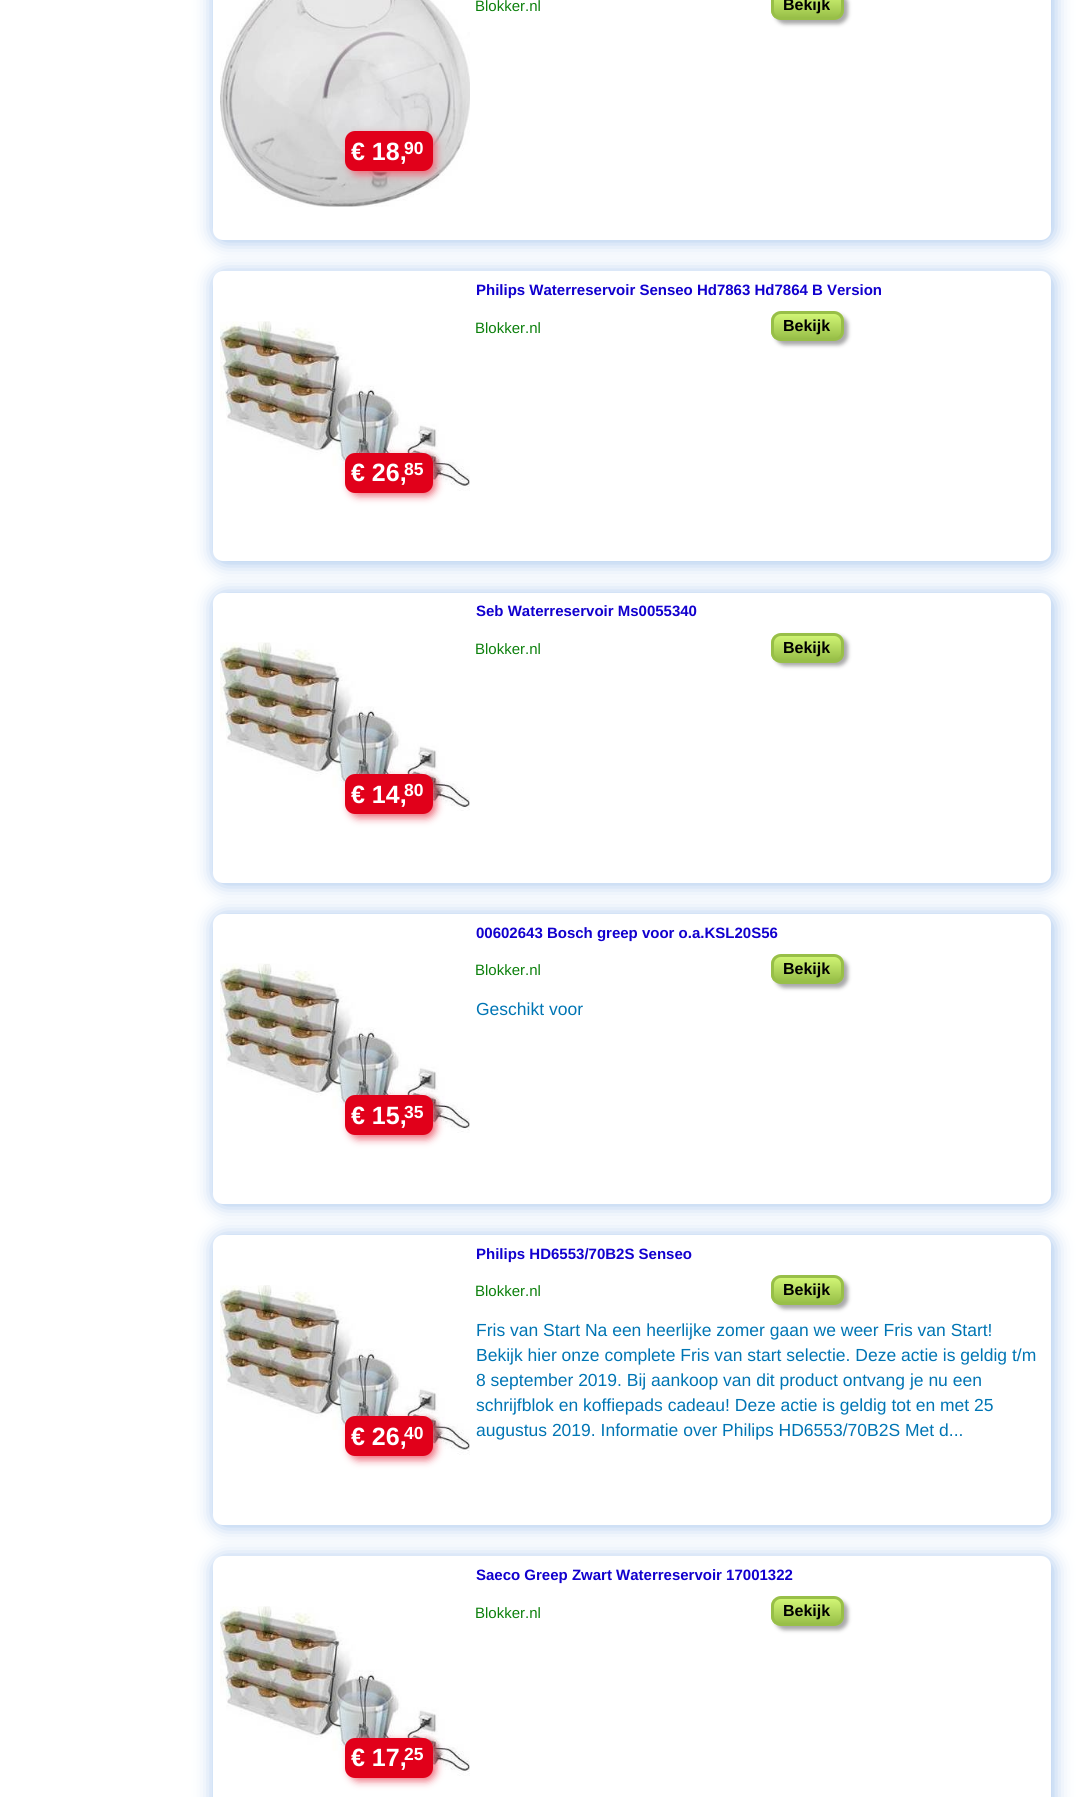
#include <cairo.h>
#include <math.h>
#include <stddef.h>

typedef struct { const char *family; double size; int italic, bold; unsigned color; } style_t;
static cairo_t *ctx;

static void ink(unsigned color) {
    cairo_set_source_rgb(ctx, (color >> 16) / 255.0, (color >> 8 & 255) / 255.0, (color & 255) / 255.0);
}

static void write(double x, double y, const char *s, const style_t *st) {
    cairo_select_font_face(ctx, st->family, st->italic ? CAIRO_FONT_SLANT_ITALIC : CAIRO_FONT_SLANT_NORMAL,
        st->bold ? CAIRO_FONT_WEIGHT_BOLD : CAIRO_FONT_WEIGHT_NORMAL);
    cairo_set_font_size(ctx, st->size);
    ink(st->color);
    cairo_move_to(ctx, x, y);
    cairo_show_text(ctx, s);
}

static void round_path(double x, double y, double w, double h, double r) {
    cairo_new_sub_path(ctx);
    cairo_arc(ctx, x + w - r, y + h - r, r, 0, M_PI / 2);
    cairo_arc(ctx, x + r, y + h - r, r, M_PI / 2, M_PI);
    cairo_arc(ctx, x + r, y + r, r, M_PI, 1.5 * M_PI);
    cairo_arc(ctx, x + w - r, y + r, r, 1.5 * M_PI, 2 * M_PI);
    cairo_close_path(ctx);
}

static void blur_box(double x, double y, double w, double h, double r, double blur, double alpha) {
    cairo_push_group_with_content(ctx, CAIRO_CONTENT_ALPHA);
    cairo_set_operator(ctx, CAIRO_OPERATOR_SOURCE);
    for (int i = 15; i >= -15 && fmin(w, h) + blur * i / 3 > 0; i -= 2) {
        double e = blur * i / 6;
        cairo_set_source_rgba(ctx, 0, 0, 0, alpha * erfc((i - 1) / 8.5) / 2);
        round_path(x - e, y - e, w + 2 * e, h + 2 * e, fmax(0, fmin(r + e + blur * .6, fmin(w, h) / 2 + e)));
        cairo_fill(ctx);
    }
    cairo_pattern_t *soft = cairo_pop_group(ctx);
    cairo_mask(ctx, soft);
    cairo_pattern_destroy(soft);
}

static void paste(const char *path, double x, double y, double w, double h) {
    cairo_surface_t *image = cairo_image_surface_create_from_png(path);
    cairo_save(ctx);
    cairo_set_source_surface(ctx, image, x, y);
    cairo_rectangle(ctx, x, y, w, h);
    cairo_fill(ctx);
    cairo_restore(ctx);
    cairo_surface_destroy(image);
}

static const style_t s1 = {"Liberation Sans", 15, 0, 0, 0x0c800c};
static const style_t s2 = {"Liberation Sans", 16, 0, 1, 0x000000};
static const style_t s3 = {"Liberation Sans", 25, 0, 1, 0xffffff};
static const style_t s4 = {"Liberation Sans", 17.5, 0, 1, 0xffffff};
static const style_t s5 = {"Liberation Sans", 15, 0, 1, 0x1100ce};
static const style_t s6 = {"Liberation Sans", 17.5, 0, 0, 0x0075b4};

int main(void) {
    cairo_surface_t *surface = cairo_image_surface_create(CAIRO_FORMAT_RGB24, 1085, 1797);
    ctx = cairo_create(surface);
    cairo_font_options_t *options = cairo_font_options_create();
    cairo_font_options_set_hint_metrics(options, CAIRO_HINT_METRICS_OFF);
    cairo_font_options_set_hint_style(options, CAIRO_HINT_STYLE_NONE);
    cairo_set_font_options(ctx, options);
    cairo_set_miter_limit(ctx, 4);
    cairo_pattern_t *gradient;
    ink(0xffffff);
    cairo_paint(ctx);
    ink(0x9fc1ec);
    blur_box(214, -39, 839, 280, 10, 9.5, 1);
    ink(0xffffff);
    round_path(213, -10, 838, 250, 10);
    cairo_fill(ctx);
    write(475, 11, "Blokker.nl", &s1);
    ink(0xa9a9a9);
    blur_box(775, -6, 73, 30, 10, 2, 1);
    cairo_save(ctx);
    round_path(771, -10, 73, 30, 10);
    cairo_clip(ctx);
    gradient = cairo_pattern_create_linear(808, -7.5, 808, 18);
    cairo_pattern_add_color_stop_rgba(gradient, 0, 0.82, 0.961, 0.459, 1);
    cairo_pattern_add_color_stop_rgba(gradient, 1, 0.596, 0.749, 0.282, 1);
    cairo_set_source(ctx, gradient);
    cairo_pattern_destroy(gradient);
    cairo_rectangle(ctx, 771, 0, 73, 18);
    cairo_fill(ctx);
    cairo_restore(ctx);
    round_path(772.5, -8.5, 70, 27, 8.5);
    ink(0x98bf48);
    cairo_set_line_width(ctx, 3);
    cairo_stroke(ctx);
    write(783, 10, "Bekijk", &s2);
    paste("pic1.png", 220, 0, 250, 207);
    ink(0xee6f7e);
    blur_box(349, 135, 87, 40, 10, 4, 1);
    ink(0xe1001a);
    round_path(345, 131, 88, 40, 10);
    cairo_fill(ctx);
    write(351, 160, "€ 18,", &s3);
    write(404, 154, "90", &s4);
    ink(0x9fc1ec);
    blur_box(214, 273, 839, 290, 10, 9.5, 1);
    ink(0xffffff);
    round_path(213, 271, 838, 290, 10);
    cairo_fill(ctx);
    write(476, 295, "Philips Waterreservoir Senseo Hd7863 Hd7864 B Version", &s5);
    write(475, 333, "Blokker.nl", &s1);
    ink(0xa9a9a9);
    blur_box(775, 315, 73, 30, 10, 2, 1);
    cairo_save(ctx);
    round_path(771, 311, 73, 30, 10);
    cairo_clip(ctx);
    gradient = cairo_pattern_create_linear(808, 314, 808, 339);
    cairo_pattern_add_color_stop_rgba(gradient, 0, 0.82, 0.961, 0.459, 1);
    cairo_pattern_add_color_stop_rgba(gradient, 1, 0.596, 0.749, 0.282, 1);
    cairo_set_source(ctx, gradient);
    cairo_pattern_destroy(gradient);
    cairo_rectangle(ctx, 771, 314, 73, 25);
    cairo_fill(ctx);
    cairo_restore(ctx);
    round_path(772.5, 312.5, 70, 27, 8.5);
    ink(0x98bf48);
    cairo_stroke(ctx);
    write(783, 331, "Bekijk", &s2);
    paste("pic2.png", 220, 321, 250, 170);
    ink(0xee6f7e);
    blur_box(349, 456, 87, 40, 10, 4, 1);
    ink(0xe1001a);
    round_path(345, 453, 88, 40, 10);
    cairo_fill(ctx);
    write(351, 481, "€ 26,", &s3);
    write(404, 475, "85", &s4);
    ink(0x9fc1ec);
    blur_box(214, 594, 839, 290, 10, 9.5, 1);
    ink(0xffffff);
    round_path(213, 593, 838, 290, 10);
    cairo_fill(ctx);
    write(476, 616, "Seb Waterreservoir Ms0055340", &s5);
    write(475, 654, "Blokker.nl", &s1);
    ink(0xa9a9a9);
    blur_box(775, 636, 73, 30, 10, 2, 1);
    cairo_save(ctx);
    round_path(771, 633, 73, 30, 10);
    cairo_clip(ctx);
    gradient = cairo_pattern_create_linear(808, 635, 808, 660);
    cairo_pattern_add_color_stop_rgba(gradient, 0, 0.82, 0.961, 0.459, 1);
    cairo_pattern_add_color_stop_rgba(gradient, 1, 0.596, 0.749, 0.282, 1);
    cairo_set_source(ctx, gradient);
    cairo_pattern_destroy(gradient);
    cairo_rectangle(ctx, 771, 635, 73, 25);
    cairo_fill(ctx);
    cairo_restore(ctx);
    round_path(772.5, 634.5, 70, 27, 8.5);
    ink(0x98bf48);
    cairo_stroke(ctx);
    write(783, 653, "Bekijk", &s2);
    paste("pic3.png", 220, 642, 250, 169);
    ink(0xee6f7e);
    blur_box(349, 778, 87, 40, 10, 4, 1);
    ink(0xe1001a);
    round_path(345, 774, 88, 40, 10);
    cairo_fill(ctx);
    write(351, 803, "€ 14,", &s3);
    write(404, 796, "80", &s4);
    ink(0x9fc1ec);
    blur_box(214, 915, 839, 290, 10, 9.5, 1);
    ink(0xffffff);
    round_path(213, 914, 838, 290, 10);
    cairo_fill(ctx);
    write(476, 938, "00602643 Bosch greep voor o.a.KSL20S56", &s5);
    write(475, 975, "Blokker.nl", &s1);
    ink(0xa9a9a9);
    blur_box(775, 958, 73, 30, 10, 2, 1);
    cairo_save(ctx);
    round_path(771, 954, 73, 30, 10);
    cairo_clip(ctx);
    gradient = cairo_pattern_create_linear(808, 956, 808, 981);
    cairo_pattern_add_color_stop_rgba(gradient, 0, 0.82, 0.961, 0.459, 1);
    cairo_pattern_add_color_stop_rgba(gradient, 1, 0.596, 0.749, 0.282, 1);
    cairo_set_source(ctx, gradient);
    cairo_pattern_destroy(gradient);
    cairo_rectangle(ctx, 771, 956, 73, 25);
    cairo_fill(ctx);
    cairo_restore(ctx);
    round_path(772.5, 955.5, 70, 27, 8.5);
    ink(0x98bf48);
    cairo_stroke(ctx);
    write(783, 974, "Bekijk", &s2);
    write(476, 1015, "Geschikt voor", &s6);
    paste("pic4.png", 220, 963, 250, 170);
    ink(0xee6f7e);
    blur_box(349, 1099, 87, 40, 10, 4, 1);
    ink(0xe1001a);
    round_path(345, 1095, 88, 40, 10);
    cairo_fill(ctx);
    write(351, 1124, "€ 15,", &s3);
    write(404, 1118, "35", &s4);
    ink(0x9fc1ec);
    blur_box(214, 1236, 839, 290, 10, 9.5, 1);
    ink(0xffffff);
    round_path(213, 1235, 838, 290, 10);
    cairo_fill(ctx);
    paste("pic5.png", 220, 1285, 250, 170);
    ink(0xee6f7e);
    blur_box(349, 1420, 87, 40, 10, 4, 1);
    ink(0xe1001a);
    round_path(345, 1416, 88, 40, 10);
    cairo_fill(ctx);
    write(351, 1445, "€ 26,", &s3);
    write(404, 1439, "40", &s4);
    write(476, 1259, "Philips HD6553/70B2S Senseo", &s5);
    write(475, 1296, "Blokker.nl", &s1);
    ink(0xa9a9a9);
    blur_box(775, 1279, 73, 30, 10, 2, 1);
    cairo_save(ctx);
    round_path(771, 1275, 73, 30, 10);
    cairo_clip(ctx);
    gradient = cairo_pattern_create_linear(808, 1278, 808, 1303);
    cairo_pattern_add_color_stop_rgba(gradient, 0, 0.82, 0.961, 0.459, 1);
    cairo_pattern_add_color_stop_rgba(gradient, 1, 0.596, 0.749, 0.282, 1);
    cairo_set_source(ctx, gradient);
    cairo_pattern_destroy(gradient);
    cairo_rectangle(ctx, 771, 1278, 73, 25);
    cairo_fill(ctx);
    cairo_restore(ctx);
    round_path(772.5, 1276.5, 70, 27, 8.5);
    ink(0x98bf48);
    cairo_stroke(ctx);
    write(783, 1295, "Bekijk", &s2);
    write(476, 1336, "Fris van Start Na een heerlijke zomer gaan we weer Fris van Start!", &s6);
    write(476, 1361, "Bekijk hier onze complete Fris van start selectie. Deze actie is geldig t/m", &s6);
    write(476, 1386, "8 september 2019. Bij aankoop van dit product ontvang je nu een", &s6);
    write(476, 1411, "schrijfblok en koffiepads cadeau! Deze actie is geldig tot en met 25", &s6);
    write(476, 1436, "augustus 2019. Informatie over Philips HD6553/70B2S Met d...", &s6);
    ink(0x9fc1ec);
    blur_box(214, 1558, 839, 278, 10, 9.5, 1);
    ink(0xffffff);
    round_path(213, 1556, 838, 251, 10);
    cairo_fill(ctx);
    write(476, 1580, "Saeco Greep Zwart Waterreservoir 17001322", &s5);
    write(475, 1618, "Blokker.nl", &s1);
    ink(0xa9a9a9);
    blur_box(775, 1600, 73, 30, 10, 2, 1);
    cairo_save(ctx);
    round_path(771, 1596, 73, 30, 10);
    cairo_clip(ctx);
    gradient = cairo_pattern_create_linear(808, 1599, 808, 1624);
    cairo_pattern_add_color_stop_rgba(gradient, 0, 0.82, 0.961, 0.459, 1);
    cairo_pattern_add_color_stop_rgba(gradient, 1, 0.596, 0.749, 0.282, 1);
    cairo_set_source(ctx, gradient);
    cairo_pattern_destroy(gradient);
    cairo_rectangle(ctx, 771, 1599, 73, 25);
    cairo_fill(ctx);
    cairo_restore(ctx);
    round_path(772.5, 1597.5, 70, 27, 8.5);
    ink(0x98bf48);
    cairo_stroke(ctx);
    write(783, 1616, "Bekijk", &s2);
    paste("pic6.png", 220, 1606, 250, 170);
    ink(0xee6f7e);
    blur_box(349, 1741, 87, 40, 10, 4, 1);
    ink(0xe1001a);
    round_path(345, 1738, 88, 40, 10);
    cairo_fill(ctx);
    write(351, 1766, "€ 17,", &s3);
    write(404, 1760, "25", &s4);
    cairo_surface_write_to_png(surface, "screenshot.png");
    cairo_font_options_destroy(options);
    cairo_destroy(ctx);
    cairo_surface_destroy(surface);
    return 0;
}
